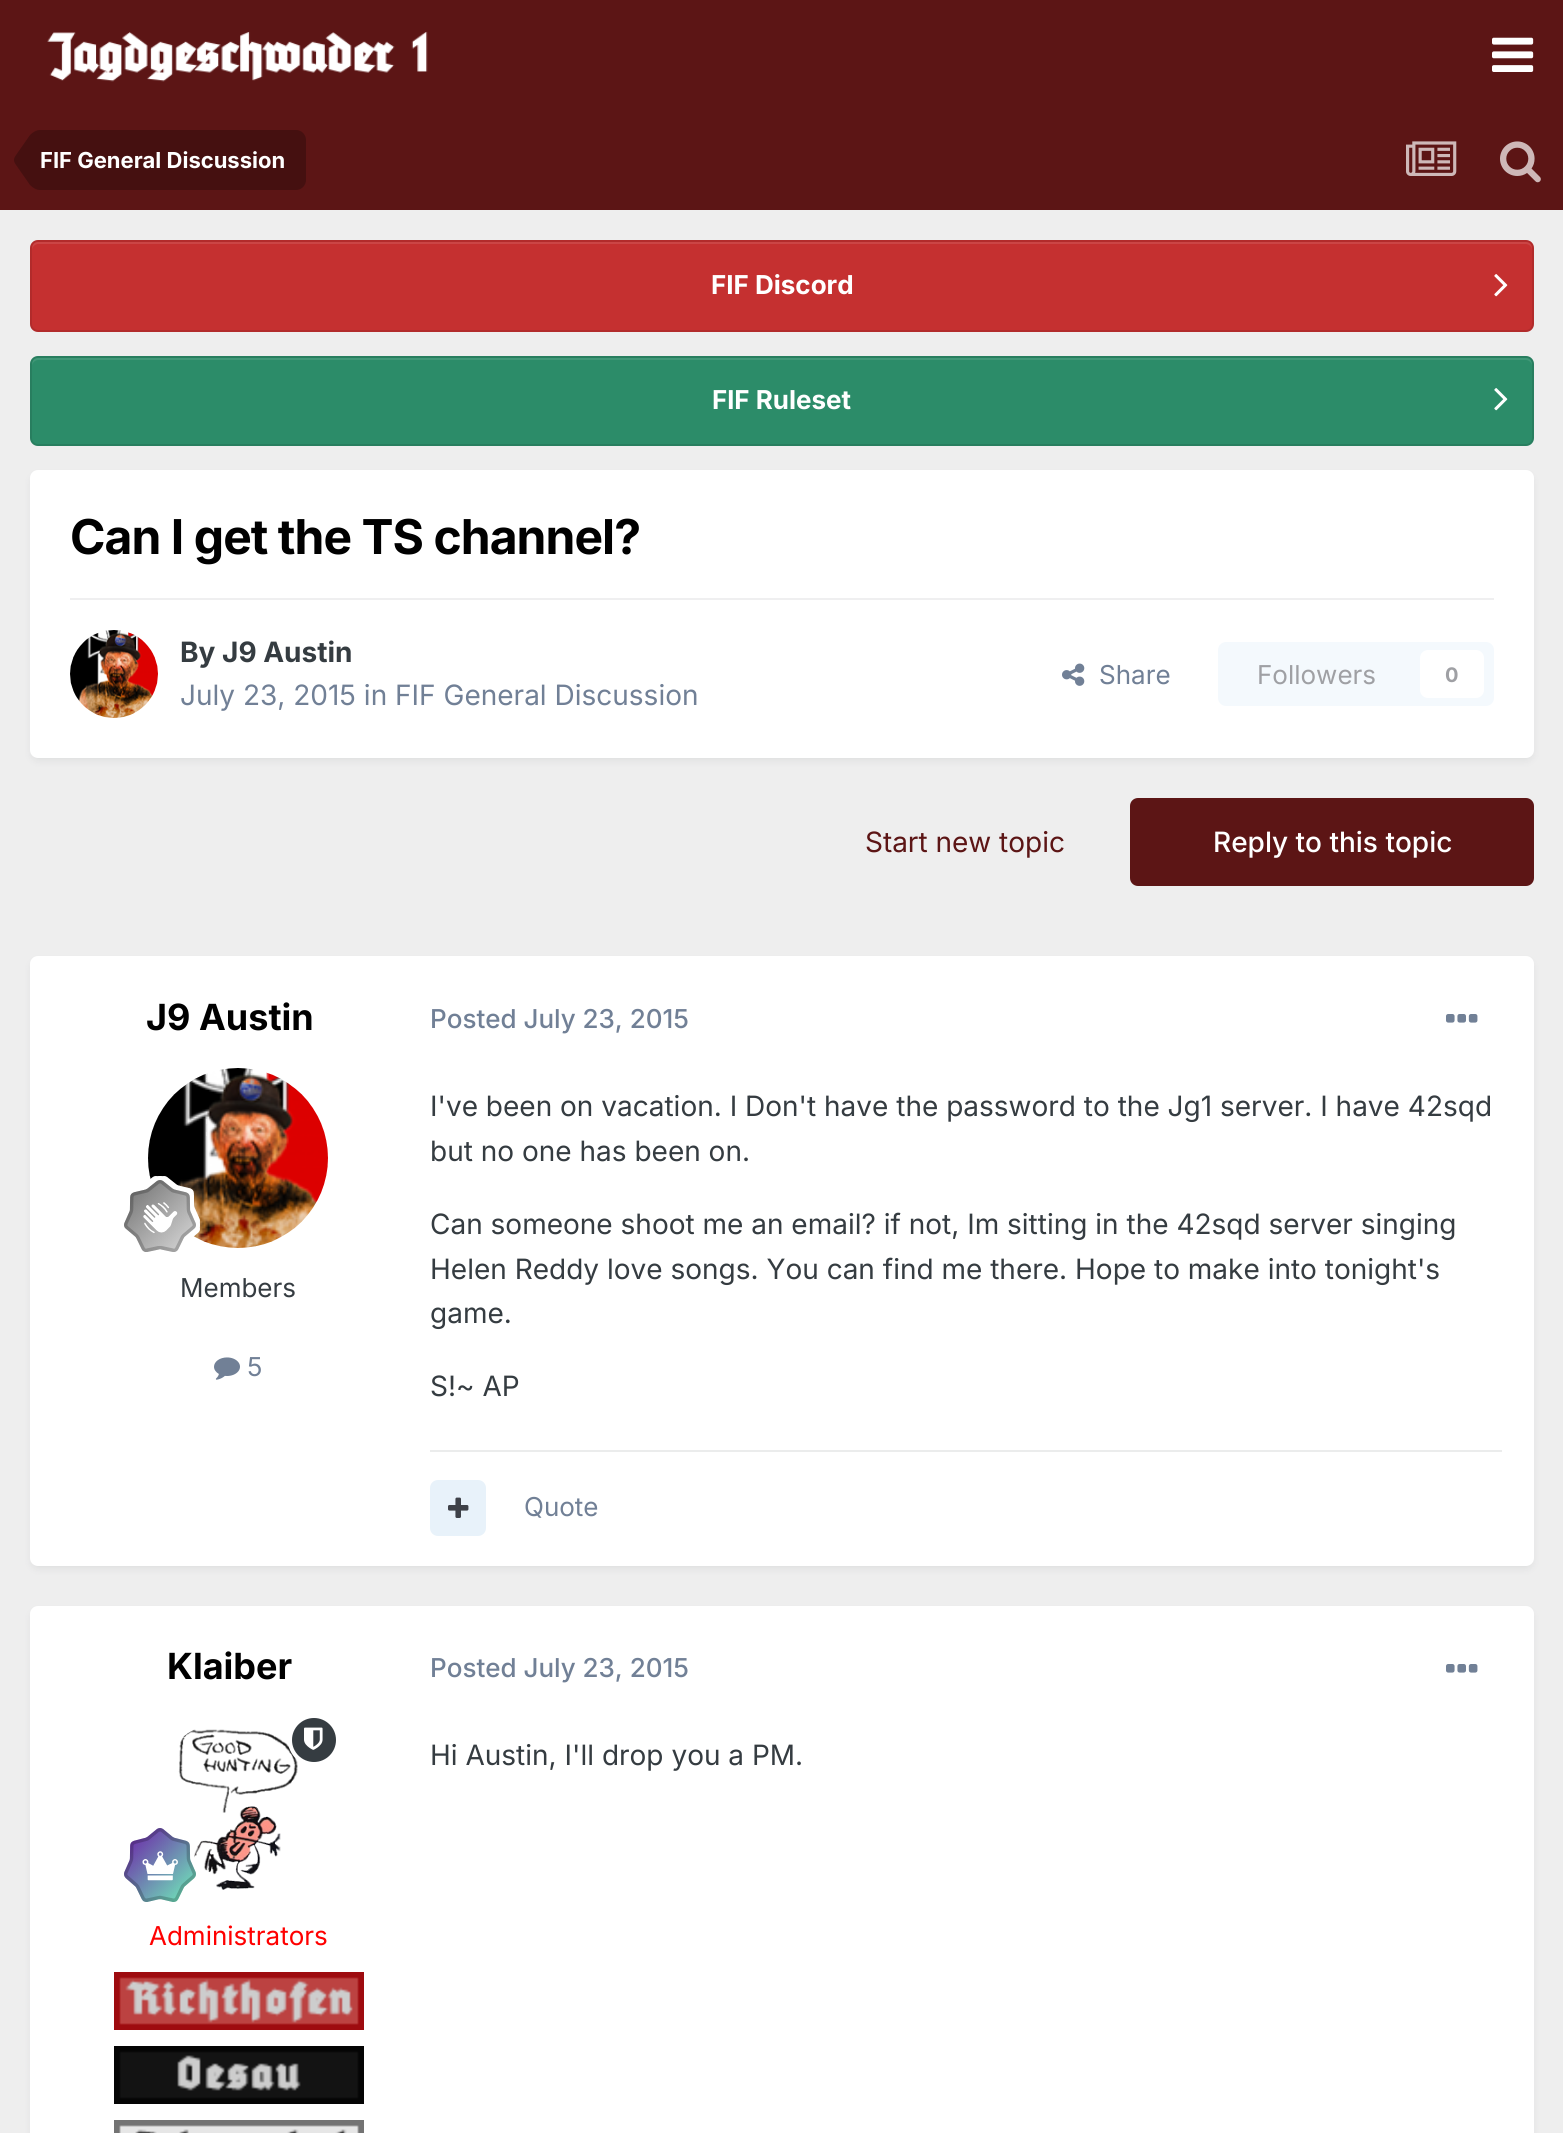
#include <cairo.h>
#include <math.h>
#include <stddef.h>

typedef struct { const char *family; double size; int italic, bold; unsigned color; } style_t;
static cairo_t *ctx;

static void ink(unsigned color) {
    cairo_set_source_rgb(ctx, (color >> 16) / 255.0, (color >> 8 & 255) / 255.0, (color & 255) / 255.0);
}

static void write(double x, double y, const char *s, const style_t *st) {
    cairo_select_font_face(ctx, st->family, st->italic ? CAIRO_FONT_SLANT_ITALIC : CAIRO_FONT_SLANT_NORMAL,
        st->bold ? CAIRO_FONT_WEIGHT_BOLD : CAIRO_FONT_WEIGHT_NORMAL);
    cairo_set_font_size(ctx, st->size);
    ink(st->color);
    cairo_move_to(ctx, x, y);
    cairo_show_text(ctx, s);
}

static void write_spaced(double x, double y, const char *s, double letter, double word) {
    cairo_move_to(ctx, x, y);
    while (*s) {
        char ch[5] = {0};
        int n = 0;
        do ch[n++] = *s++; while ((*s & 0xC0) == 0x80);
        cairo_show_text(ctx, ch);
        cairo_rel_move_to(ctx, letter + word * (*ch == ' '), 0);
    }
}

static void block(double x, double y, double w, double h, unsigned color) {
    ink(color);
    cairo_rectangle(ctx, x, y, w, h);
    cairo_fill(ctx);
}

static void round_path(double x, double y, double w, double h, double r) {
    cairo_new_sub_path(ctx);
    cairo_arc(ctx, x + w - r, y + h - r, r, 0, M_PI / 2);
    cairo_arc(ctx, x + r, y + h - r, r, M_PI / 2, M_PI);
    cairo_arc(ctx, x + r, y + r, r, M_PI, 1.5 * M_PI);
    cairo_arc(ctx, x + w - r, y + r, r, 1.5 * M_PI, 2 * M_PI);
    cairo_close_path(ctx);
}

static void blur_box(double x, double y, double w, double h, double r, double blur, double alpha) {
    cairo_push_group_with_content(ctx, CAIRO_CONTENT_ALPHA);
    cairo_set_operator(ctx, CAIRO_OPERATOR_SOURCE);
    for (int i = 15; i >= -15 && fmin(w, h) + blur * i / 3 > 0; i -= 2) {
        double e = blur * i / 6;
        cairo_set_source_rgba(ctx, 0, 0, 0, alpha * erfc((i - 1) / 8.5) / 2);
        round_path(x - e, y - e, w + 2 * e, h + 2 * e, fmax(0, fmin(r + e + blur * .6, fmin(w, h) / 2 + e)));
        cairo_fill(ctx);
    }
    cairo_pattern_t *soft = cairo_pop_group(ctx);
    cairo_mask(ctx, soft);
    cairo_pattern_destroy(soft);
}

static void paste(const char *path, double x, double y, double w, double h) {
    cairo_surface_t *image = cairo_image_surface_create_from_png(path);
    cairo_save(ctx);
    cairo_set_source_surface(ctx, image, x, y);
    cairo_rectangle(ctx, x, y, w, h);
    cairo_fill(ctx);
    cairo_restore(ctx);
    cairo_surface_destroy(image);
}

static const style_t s1 = {"Inter", 22, 0, 1, 0xffffff};
static const style_t s2 = {"Inter", 26, 0, 1, 0xffffff};
static const style_t s3 = {"Inter", 28, 0, 1, 0x353c41};
static const style_t s4 = {"Inter", 28, 0, 0, 0x718096};
static const style_t s5 = {"Inter", 26, 0, 0, 0x718096};
static const style_t s6 = {"Inter", 26, 0, 0, 0x9fa0a4};
static const style_t s7 = {"Inter", 20, 0, 1, 0x9fa0a4};
static const style_t s8 = {"Inter", 28, 0, 0, 0x5c1515};
static const style_t s9 = {"Inter Medium", 28, 0, 0, 0xffffff};
static const style_t s10 = {"Inter", 36, 0, 1, 0x000000};
static const style_t s11 = {"Inter", 26, 0, 0, 0x353c41};
static const style_t s12 = {"Inter Medium", 26, 0, 0, 0x718096};
static const style_t s13 = {"Inter", 28, 0, 0, 0x353c41};
static const style_t s14 = {"Inter", 26, 0, 0, 0xff0000};

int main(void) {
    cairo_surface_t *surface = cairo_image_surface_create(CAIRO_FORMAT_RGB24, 1563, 2133);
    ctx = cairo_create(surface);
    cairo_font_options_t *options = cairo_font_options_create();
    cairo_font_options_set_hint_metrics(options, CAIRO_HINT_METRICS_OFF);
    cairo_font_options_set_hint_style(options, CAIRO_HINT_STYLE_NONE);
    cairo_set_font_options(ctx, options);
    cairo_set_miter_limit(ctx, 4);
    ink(0xeeeeee);
    cairo_paint(ctx);
    block(0, 0, 1563, 210, 0x5c1515);
    paste("pic1.png", 47, 31, 381, 51);
    paste("pic2.png", 1492, 37, 42, 35);
    ink(0x451010);
    cairo_new_path(ctx);
    cairo_move_to(ctx, 40, 130);
    cairo_line_to(ctx, 296, 130);
    cairo_curve_to(ctx, 301.5, 130, 306, 134.5, 306, 140);
    cairo_line_to(ctx, 306, 180);
    cairo_curve_to(ctx, 306, 185.5, 301.5, 190, 296, 190);
    cairo_line_to(ctx, 40, 190);
    cairo_close_path(ctx);
    cairo_fill(ctx);
    cairo_new_path(ctx);
    cairo_move_to(ctx, 40, 160);
    cairo_line_to(ctx, 40, 190);
    cairo_curve_to(ctx, 36.5, 190, 33, 188, 30, 185);
    cairo_line_to(ctx, 15, 163.5);
    cairo_curve_to(ctx, 14.5, 162.5, 14, 161.5, 14, 160);
    cairo_close_path(ctx);
    cairo_move_to(ctx, 40, 160);
    cairo_line_to(ctx, 14, 160);
    cairo_curve_to(ctx, 14, 158.5, 14.5, 157.5, 15, 156.5);
    cairo_line_to(ctx, 30, 135);
    cairo_curve_to(ctx, 33, 132, 36.5, 130, 40, 130);
    cairo_close_path(ctx);
    cairo_fill(ctx);
    write(40, 168, "FIF General Discussion", &s1);
    paste("pic3.png", 1406, 141, 51, 35);
    paste("pic4.png", 1500, 141, 41, 42);
    ink(0xc53030);
    round_path(30, 240, 1504, 92, 8);
    cairo_fill(ctx);
    ink(0xcb4545);
    cairo_new_path(ctx);
    cairo_move_to(ctx, 38, 244);
    cairo_line_to(ctx, 1526, 244);
    cairo_curve_to(ctx, 1529, 244, 1532, 247, 1532, 250);
    cairo_curve_to(ctx, 1532, 246, 1531, 242, 1526, 242);
    cairo_line_to(ctx, 38, 242);
    cairo_curve_to(ctx, 33, 242, 32, 246, 32, 250);
    cairo_curve_to(ctx, 32, 247, 35, 244, 38, 244);
    cairo_close_path(ctx);
    cairo_fill(ctx);
    round_path(31, 241, 1502, 90, 7);
    cairo_set_source_rgba(ctx, 0, 0, 0, 0.1);
    cairo_stroke(ctx);
    write(711, 294, "FIF Discord", &s2);
    paste("pic5.png", 1494, 274, 14, 23);
    ink(0x2c8c69);
    round_path(30, 356, 1504, 90, 8);
    cairo_fill(ctx);
    ink(0x419878);
    cairo_new_path(ctx);
    cairo_move_to(ctx, 38, 360);
    cairo_line_to(ctx, 1526, 360);
    cairo_curve_to(ctx, 1529, 360, 1532, 363, 1532, 366);
    cairo_curve_to(ctx, 1532, 362, 1531, 358, 1526, 358);
    cairo_line_to(ctx, 38, 358);
    cairo_curve_to(ctx, 33, 358, 32, 362, 32, 366);
    cairo_curve_to(ctx, 32, 363, 35, 360, 38, 360);
    cairo_close_path(ctx);
    cairo_fill(ctx);
    round_path(31, 357, 1502, 88, 7);
    cairo_set_source_rgba(ctx, 0, 0, 0, 0.1);
    cairo_stroke(ctx);
    write(712, 409, "FlF Ruleset", &s2);
    paste("pic6.png", 1494, 388, 14, 23);
    ink(0x353c41);
    blur_box(32, 476, 1500, 284, 6, 4, 0.1);
    ink(0xffffff);
    round_path(30, 470, 1504, 288, 8);
    cairo_fill(ctx);
    cairo_set_font_size(ctx, 48);
    ink(0x000000);
    write_spaced(70, 554, "Can I get the TS channel?", -0.95, 0);
    block(70, 598, 1424, 2, 0xefeff0);
    paste("pic7.png", 70, 630, 88, 88);
    write(180, 662, "By J9 Austin", &s3);
    write(180, 705, "July 23, 2015 in FIF General Discussion", &s4);
    paste("pic8.png", 1062, 663, 23, 23);
    write(1099, 684, "Share", &s5);
    ink(0xf4f9fd);
    round_path(1218, 642, 276, 64, 8);
    cairo_fill(ctx);
    write(1257, 684, "Followers", &s6);
    ink(0xffffff);
    round_path(1420, 650, 64, 48, 8);
    cairo_fill(ctx);
    write(1445, 682, "0", &s7);
    write(865, 852, "Start new topic", &s8);
    round_path(1130, 798, 404, 88, 8);
    cairo_fill(ctx);
    write(1213, 852, "Reply to this topic", &s9);
    ink(0x353c41);
    blur_box(32, 962, 1500, 606, 6, 4, 0.1);
    ink(0xffffff);
    round_path(30, 956, 1504, 610, 8);
    cairo_fill(ctx);
    write(146, 1030, "J9 Austin", &s10);
    paste("pic9.png", 148, 1068, 180, 180);
    paste("pic10.png", 124, 1176, 76, 76);
    write(180, 1297, "Members", &s11);
    paste("pic11.png", 214, 1357, 26, 23);
    write(247, 1376, "5", &s5);
    write(430, 1028, "Posted July 23, 2015", &s12);
    paste("pic12.png", 1446, 1014, 32, 9);
    write(430, 1116, "I've been on vacation. I Don't have the password to the Jg1 server. I have 42sqd", &s13);
    write(430, 1161, "but no one has been on.", &s13);
    write(430, 1234, "Can someone shoot me an email? if not, Im sitting in the 42sqd server singing", &s13);
    write(430, 1279, "Helen Reddy love songs. You can find me there. Hope to make into tonight's", &s13);
    write(430, 1323, "game.", &s13);
    write(430, 1396, "S!~ AP", &s13);
    block(430, 1450, 1072, 2, 0xebecec);
    ink(0xe8f2fa);
    round_path(430, 1480, 56, 56, 8);
    cairo_fill(ctx);
    paste("pic13.png", 448, 1497, 21, 21);
    write(524, 1516, "Quote", &s5);
    ink(0x353c41);
    blur_box(32, 1612, 1500, 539, 6, 4, 0.1);
    ink(0xffffff);
    round_path(30, 1606, 1504, 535, 8);
    cairo_fill(ctx);
    write(167, 1679, "Klaiber", &s10);
    paste("pic15.png", 178, 1729, 120, 161);
    paste("pic14.png", 124, 1828, 72, 74);
    ink(0x353c41);
    cairo_arc(ctx, 314, 1740, 24, 0, 2 * M_PI);
    cairo_fill_preserve(ctx);
    ink(0xffffff);
    cairo_set_line_width(ctx, 4);
    cairo_stroke(ctx);
    paste("pic16.png", 304, 1727, 19, 23);
    write(149, 1945, "Administrators", &s14);
    paste("pic17.png", 114, 1972, 250, 58);
    paste("pic18.png", 114, 2046, 250, 58);
    paste("pic19.png", 114, 2120, 250, 13);
    write(430, 1677, "Posted July 23, 2015", &s12);
    paste("pic12.png", 1446, 1664, 32, 9);
    write(430, 1765, "Hi Austin, I'll drop you a PM.", &s13);
    cairo_surface_write_to_png(surface, "screenshot.png");
    cairo_font_options_destroy(options);
    cairo_destroy(ctx);
    cairo_surface_destroy(surface);
    return 0;
}
